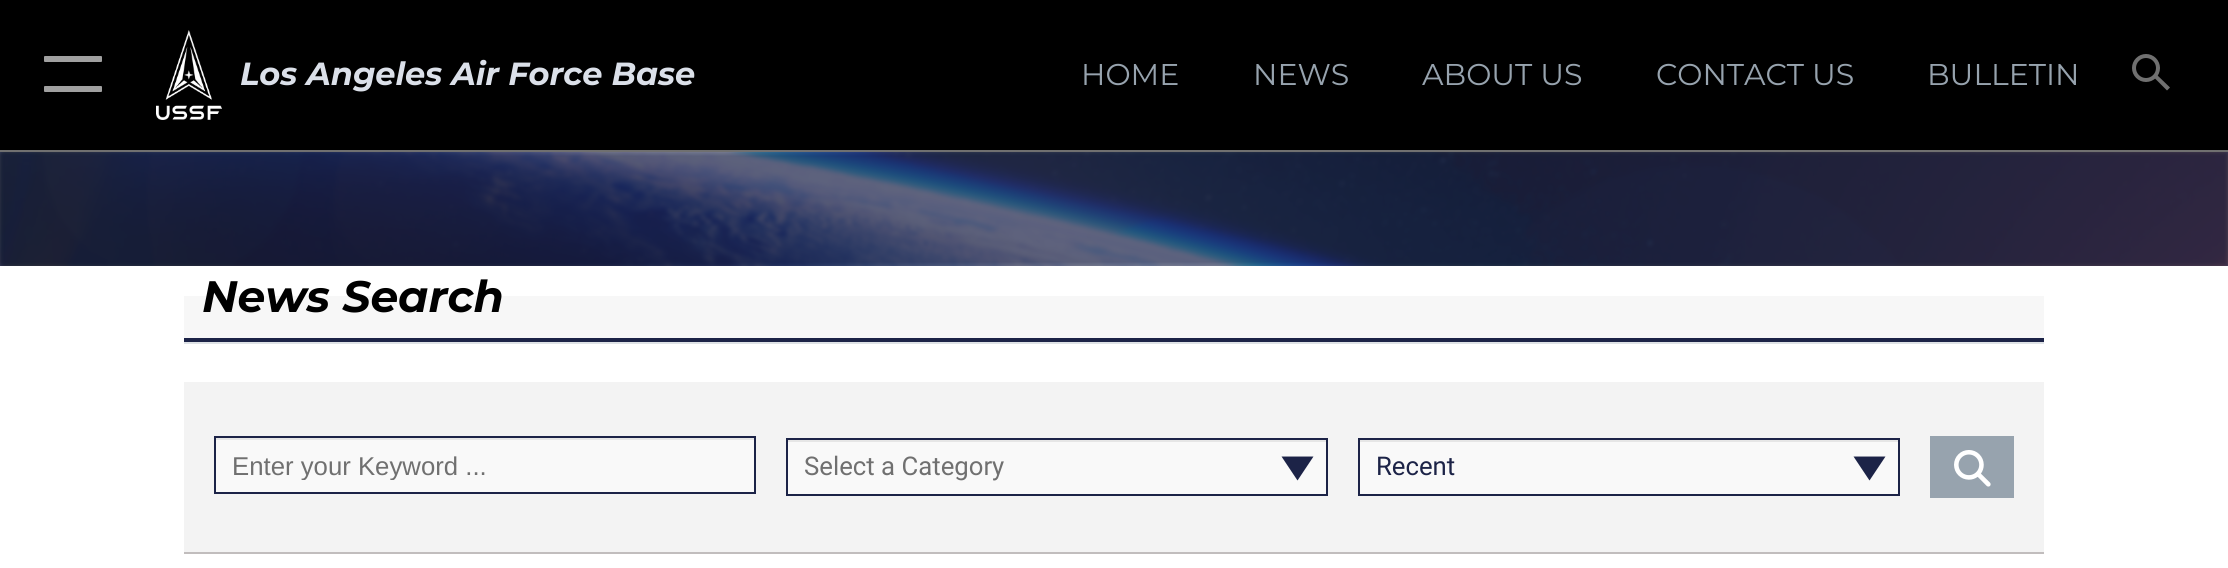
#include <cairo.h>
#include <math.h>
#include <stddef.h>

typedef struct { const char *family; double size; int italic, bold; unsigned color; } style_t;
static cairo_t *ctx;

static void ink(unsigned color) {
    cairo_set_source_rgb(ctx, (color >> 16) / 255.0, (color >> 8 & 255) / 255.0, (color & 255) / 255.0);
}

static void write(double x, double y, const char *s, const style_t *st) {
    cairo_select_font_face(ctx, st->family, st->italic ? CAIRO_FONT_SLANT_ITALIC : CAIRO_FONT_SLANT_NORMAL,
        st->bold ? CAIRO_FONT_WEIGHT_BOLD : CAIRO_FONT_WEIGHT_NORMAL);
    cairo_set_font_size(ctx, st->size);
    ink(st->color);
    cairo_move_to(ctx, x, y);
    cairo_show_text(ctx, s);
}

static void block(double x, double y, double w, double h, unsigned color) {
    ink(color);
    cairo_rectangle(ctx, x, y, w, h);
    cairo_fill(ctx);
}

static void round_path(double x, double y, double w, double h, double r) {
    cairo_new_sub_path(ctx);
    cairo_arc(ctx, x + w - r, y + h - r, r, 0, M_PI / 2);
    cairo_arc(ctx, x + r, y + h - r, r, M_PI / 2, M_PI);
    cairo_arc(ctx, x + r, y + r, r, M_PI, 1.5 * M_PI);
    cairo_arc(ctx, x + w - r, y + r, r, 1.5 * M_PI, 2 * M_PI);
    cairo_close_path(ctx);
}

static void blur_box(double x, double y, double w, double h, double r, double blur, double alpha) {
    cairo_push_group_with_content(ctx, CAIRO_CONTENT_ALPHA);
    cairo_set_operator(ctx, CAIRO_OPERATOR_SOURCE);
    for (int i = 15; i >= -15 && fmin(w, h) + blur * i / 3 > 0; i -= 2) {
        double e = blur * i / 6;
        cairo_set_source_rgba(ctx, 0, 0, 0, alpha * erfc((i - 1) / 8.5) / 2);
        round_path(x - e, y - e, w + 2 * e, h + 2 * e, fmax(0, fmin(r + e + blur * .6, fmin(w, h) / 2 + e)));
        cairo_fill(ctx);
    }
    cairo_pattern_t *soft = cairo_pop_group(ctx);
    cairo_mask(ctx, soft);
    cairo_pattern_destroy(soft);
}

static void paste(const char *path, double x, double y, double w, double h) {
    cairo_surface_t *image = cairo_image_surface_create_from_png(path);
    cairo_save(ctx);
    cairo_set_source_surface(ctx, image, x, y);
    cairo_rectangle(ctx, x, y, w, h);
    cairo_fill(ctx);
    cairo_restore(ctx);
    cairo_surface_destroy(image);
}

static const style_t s1 = {"Montserrat", 32, 1, 1, 0xdbe0e9};
static const style_t s2 = {"Montserrat", 30, 0, 0, 0x97a3ae};
static const style_t s3 = {"Montserrat", 44, 1, 1, 0x000000};
static const style_t s4 = {"Liberation Sans", 25.75, 0, 0, 0x707070};
static const style_t s5 = {"Roboto", 25.75, 0, 0, 0x707070};
static const style_t s6 = {"Roboto", 25.75, 0, 0, 0x1c2347};

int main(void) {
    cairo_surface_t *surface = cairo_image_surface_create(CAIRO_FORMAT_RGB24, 2228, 568);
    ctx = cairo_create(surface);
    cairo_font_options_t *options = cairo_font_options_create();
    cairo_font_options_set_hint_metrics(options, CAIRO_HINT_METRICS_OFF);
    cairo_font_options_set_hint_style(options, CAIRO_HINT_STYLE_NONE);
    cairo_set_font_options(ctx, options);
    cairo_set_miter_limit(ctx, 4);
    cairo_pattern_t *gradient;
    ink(0xffffff);
    cairo_paint(ctx);
    block(0, 152, 2228, 114, 0x4a4f6c);
    paste("pic2.png", 0, 152, 2228, 114);
    cairo_save(ctx);
    cairo_rectangle(ctx, 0, 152, 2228, 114);
    cairo_clip(ctx);
    ink(0x1c2347);
    blur_box(0, 152, 2228, 114, 0, 2, 0.7);
    cairo_restore(ctx);
    block(0, 0, 2228, 150, 0x000000);
    block(0, 150, 2228, 2, 0x707070);
    ink(0xa0a0a0);
    round_path(44, 56, 58, 6, 1);
    cairo_fill(ctx);
    round_path(44, 86, 58, 6, 1);
    cairo_fill(ctx);
    paste("pic1.png", 156, 30, 66, 90);
    write(240, 85, "Los Angeles Air Force Base", &s1);
    write(1081, 85, "HOME", &s2);
    write(1253, 85, "NEWS", &s2);
    write(1422, 85, "ABOUT US", &s2);
    write(1656, 85, "CONTACT US", &s2);
    write(1927, 85, "BULLETIN", &s2);
    cairo_new_path(ctx);
    cairo_arc(ctx, 2146, 68, 12, 0, 2 * M_PI);
    ink(0x707070);
    cairo_set_line_width(ctx, 4);
    cairo_stroke(ctx);
    cairo_new_path(ctx);
    cairo_move_to(ctx, 2155.5, 73.5);
    cairo_line_to(ctx, 2170, 87.5);
    cairo_line_to(ctx, 2167, 90.5);
    cairo_line_to(ctx, 2153, 76.5);
    cairo_close_path(ctx);
    cairo_fill(ctx);
    gradient = cairo_pattern_create_linear(1114, 266, 1114, 342);
    cairo_pattern_add_color_stop_rgba(gradient, 0, 1, 1, 1, 1);
    cairo_pattern_add_color_stop_rgba(gradient, 0.39, 1, 1, 1, 1);
    cairo_pattern_add_color_stop_rgba(gradient, 0.39, 0.969, 0.969, 0.969, 1);
    cairo_pattern_add_color_stop_rgba(gradient, 1, 0.969, 0.969, 0.969, 1);
    cairo_set_source(ctx, gradient);
    cairo_pattern_destroy(gradient);
    cairo_rectangle(ctx, 184, 296, 1860, 42);
    cairo_fill(ctx);
    block(184, 342, 1860, 2, 0xdee2e6);
    write(202, 312, "News Search", &s3);
    block(184, 338, 1860, 4, 0x1c2347);
    block(184, 382, 1860, 170, 0xf3f3f3);
    block(216, 440, 538, 52, 0xf9f9f9);
    block(216, 438, 538, 2, 0xe6e6e6);
    cairo_rectangle(ctx, 215, 437, 540, 56);
    ink(0x1c2347);
    cairo_set_line_width(ctx, 2);
    cairo_stroke(ctx);
    cairo_save(ctx);
    cairo_rectangle(ctx, 232, 450, 506, 30);
    cairo_clip(ctx);
    write(232, 475, "Enter your Keyword ...", &s4);
    cairo_restore(ctx);
    block(788, 442, 538, 52, 0xf9f9f9);
    block(788, 440, 538, 2, 0xe6e6e6);
    cairo_rectangle(ctx, 787, 439, 540, 56);
    ink(0x1c2347);
    cairo_stroke(ctx);
    write(804, 475, "Select a Category", &s5);
    ink(0x1c2347);
    cairo_new_path(ctx);
    cairo_move_to(ctx, 1281.5, 456.5);
    cairo_line_to(ctx, 1313.5, 456.5);
    cairo_line_to(ctx, 1297.5, 480.5);
    cairo_close_path(ctx);
    cairo_fill(ctx);
    block(1360, 442, 538, 52, 0xf9f9f9);
    block(1360, 440, 538, 2, 0xe6e6e6);
    cairo_rectangle(ctx, 1359, 439, 540, 56);
    ink(0x1c2347);
    cairo_stroke(ctx);
    write(1376, 475, "Recent", &s6);
    cairo_new_path(ctx);
    cairo_move_to(ctx, 1853.5, 456.5);
    cairo_line_to(ctx, 1885.5, 456.5);
    cairo_line_to(ctx, 1869.5, 480.5);
    cairo_close_path(ctx);
    cairo_fill(ctx);
    block(1930, 436, 84, 62, 0x97a3ae);
    paste("pic3.png", 1954, 450, 37, 37);
    block(184, 552, 1860, 2, 0xc1bdbd);
    cairo_surface_write_to_png(surface, "screenshot.png");
    cairo_font_options_destroy(options);
    cairo_destroy(ctx);
    cairo_surface_destroy(surface);
    return 0;
}
